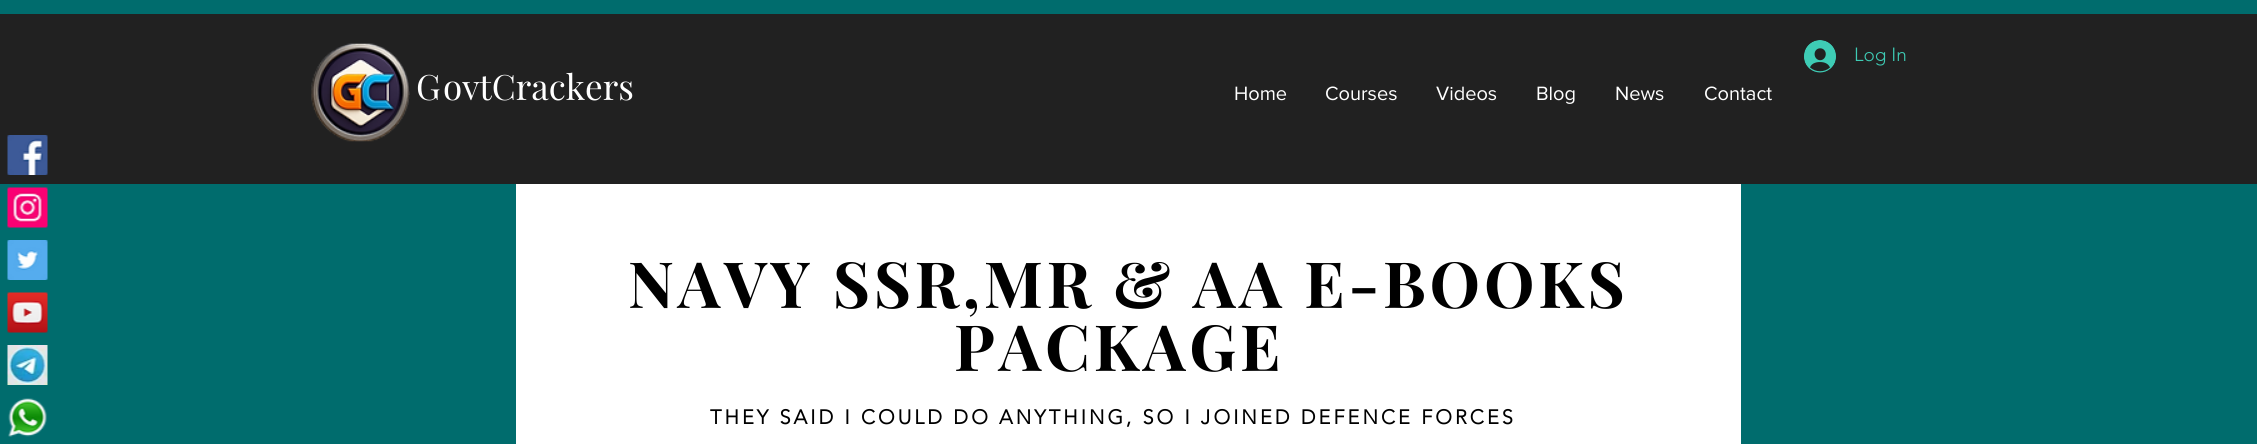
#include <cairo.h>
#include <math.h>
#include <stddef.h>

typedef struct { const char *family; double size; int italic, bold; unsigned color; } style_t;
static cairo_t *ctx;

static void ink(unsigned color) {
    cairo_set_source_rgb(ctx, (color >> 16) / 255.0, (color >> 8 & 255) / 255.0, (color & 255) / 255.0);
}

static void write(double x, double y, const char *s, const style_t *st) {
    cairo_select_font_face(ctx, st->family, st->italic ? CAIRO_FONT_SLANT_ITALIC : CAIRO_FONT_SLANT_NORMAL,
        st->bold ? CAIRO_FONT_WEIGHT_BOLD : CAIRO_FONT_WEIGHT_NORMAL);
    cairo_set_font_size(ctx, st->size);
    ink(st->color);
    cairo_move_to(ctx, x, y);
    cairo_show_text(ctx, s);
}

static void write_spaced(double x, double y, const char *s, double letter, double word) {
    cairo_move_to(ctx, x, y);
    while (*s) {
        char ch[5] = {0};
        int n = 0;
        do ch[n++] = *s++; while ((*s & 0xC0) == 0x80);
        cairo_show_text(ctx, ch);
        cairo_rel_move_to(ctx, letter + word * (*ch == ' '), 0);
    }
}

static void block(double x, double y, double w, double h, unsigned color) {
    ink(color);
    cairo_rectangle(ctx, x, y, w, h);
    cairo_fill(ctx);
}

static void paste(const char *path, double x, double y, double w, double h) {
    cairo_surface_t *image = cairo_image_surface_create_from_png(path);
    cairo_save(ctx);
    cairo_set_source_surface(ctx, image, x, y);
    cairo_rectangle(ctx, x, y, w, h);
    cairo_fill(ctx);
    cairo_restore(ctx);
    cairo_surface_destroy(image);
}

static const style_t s1 = {"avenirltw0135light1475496 Light", 19, 0, 0, 0x3eccb5};
static const style_t s2 = {"Playfair Display", 35, 0, 0, 0xffffff};
static const style_t s3 = {"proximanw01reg", 20, 0, 0, 0xffffff};

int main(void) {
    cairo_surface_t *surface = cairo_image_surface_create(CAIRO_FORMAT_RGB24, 2257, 444);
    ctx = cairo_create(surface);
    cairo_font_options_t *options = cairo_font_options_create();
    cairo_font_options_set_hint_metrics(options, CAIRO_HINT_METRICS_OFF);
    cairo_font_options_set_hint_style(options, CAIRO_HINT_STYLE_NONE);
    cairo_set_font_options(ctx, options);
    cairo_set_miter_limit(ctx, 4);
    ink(0x006c6d);
    cairo_paint(ctx);
    block(0, 14, 2257, 170, 0x212121);
    paste("pic1.png", 311, 43, 99, 99);
    paste("pic2.png", 1804, 40, 32, 33);
    write(1854, 61, "Log In", &s1);
    cairo_select_font_face(ctx, "Playfair Display", CAIRO_FONT_SLANT_NORMAL, CAIRO_FONT_WEIGHT_NORMAL);
    cairo_set_font_size(ctx, 35);
    ink(0xffffff);
    write_spaced(416, 100, "G", 2, 0);
    write(443, 100, "ovtCrackers", &s2);
    write(1234, 100, "Home", &s3);
    write(1325, 100, "Courses", &s3);
    write(1436, 100, "Videos", &s3);
    write(1536, 100, "Blog", &s3);
    write(1615, 100, "News", &s3);
    write(1704, 100, "Contact", &s3);
    paste("pic3.png", 7, 135, 41, 40);
    paste("pic4.png", 7, 187, 41, 41);
    paste("pic5.png", 7, 240, 41, 40);
    paste("pic6.png", 7, 292, 41, 41);
    paste("pic7.png", 7, 345, 41, 40);
    paste("pic8.png", 8, 398, 39, 39);
    block(516, 184, 1225, 260, 0xffffff);
    cairo_select_font_face(ctx, "Playfair Display", CAIRO_FONT_SLANT_NORMAL, CAIRO_FONT_WEIGHT_BOLD);
    cairo_set_font_size(ctx, 63.75);
    ink(0x000000);
    write_spaced(628, 308, "NAVY SSR,MR & AA E-BOOKS", 3.8, 0);
    write_spaced(954, 371, "PACKAGE", 3.8, 0);
    cairo_select_font_face(ctx, "avenirltw0135light1475496", CAIRO_FONT_SLANT_NORMAL, CAIRO_FONT_WEIGHT_BOLD);
    cairo_set_font_size(ctx, 20);
    write_spaced(710, 424, "THEY SAID I COULD DO ANYTHING, SO I JOINED DEFENCE FORCES", 3, 0);
    cairo_surface_write_to_png(surface, "screenshot.png");
    cairo_font_options_destroy(options);
    cairo_destroy(ctx);
    cairo_surface_destroy(surface);
    return 0;
}
